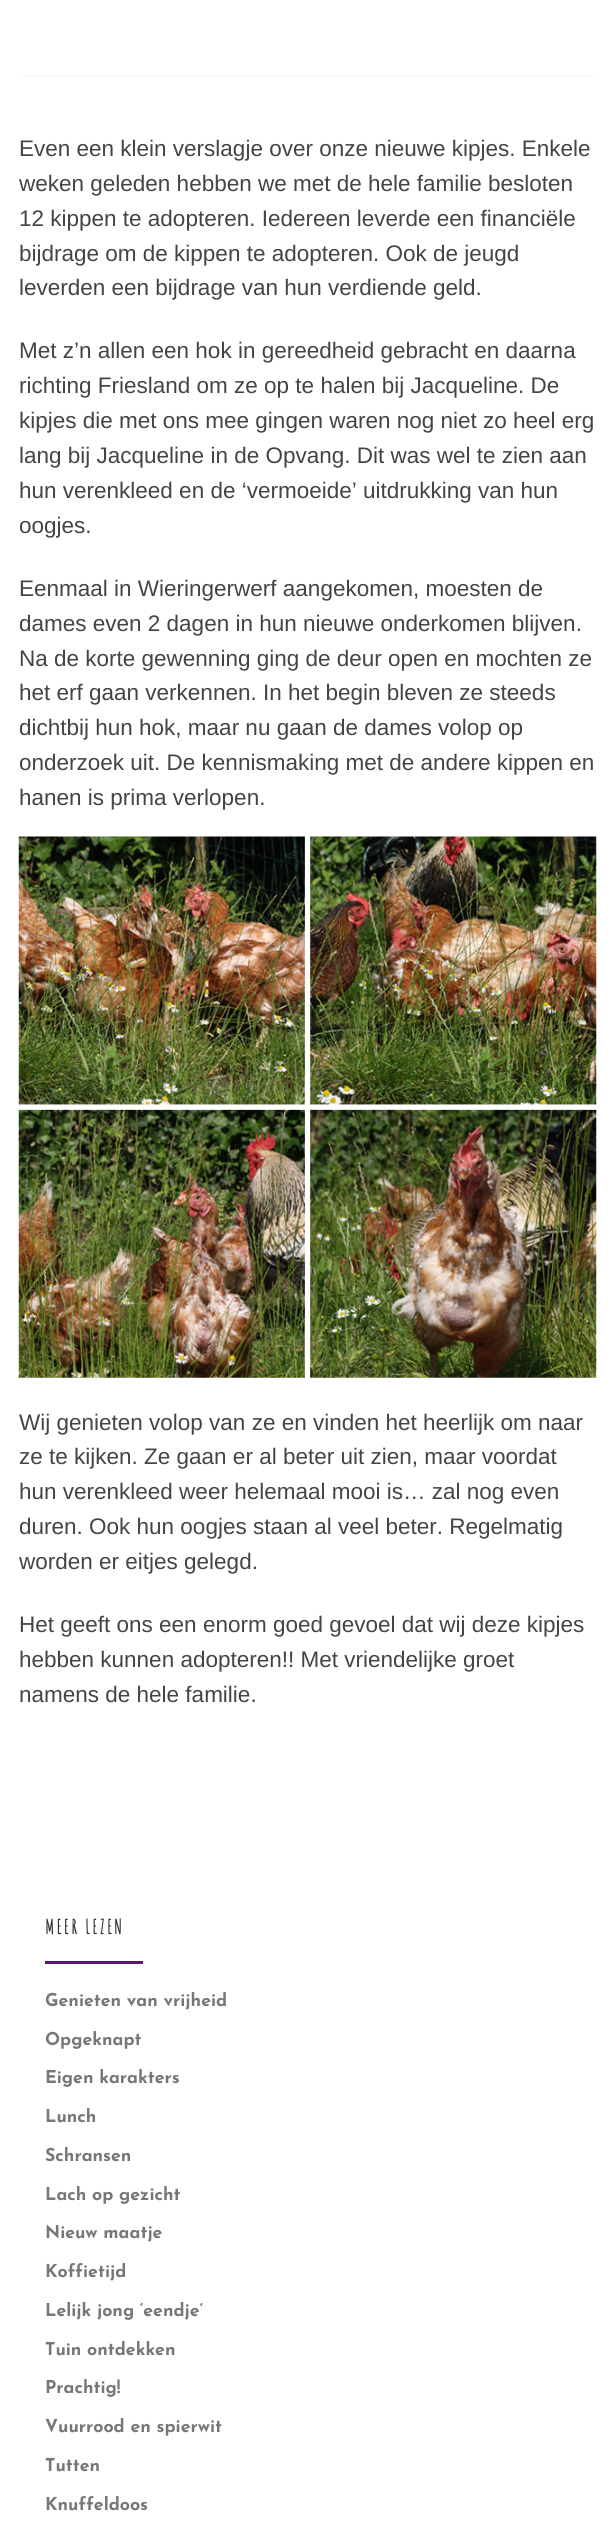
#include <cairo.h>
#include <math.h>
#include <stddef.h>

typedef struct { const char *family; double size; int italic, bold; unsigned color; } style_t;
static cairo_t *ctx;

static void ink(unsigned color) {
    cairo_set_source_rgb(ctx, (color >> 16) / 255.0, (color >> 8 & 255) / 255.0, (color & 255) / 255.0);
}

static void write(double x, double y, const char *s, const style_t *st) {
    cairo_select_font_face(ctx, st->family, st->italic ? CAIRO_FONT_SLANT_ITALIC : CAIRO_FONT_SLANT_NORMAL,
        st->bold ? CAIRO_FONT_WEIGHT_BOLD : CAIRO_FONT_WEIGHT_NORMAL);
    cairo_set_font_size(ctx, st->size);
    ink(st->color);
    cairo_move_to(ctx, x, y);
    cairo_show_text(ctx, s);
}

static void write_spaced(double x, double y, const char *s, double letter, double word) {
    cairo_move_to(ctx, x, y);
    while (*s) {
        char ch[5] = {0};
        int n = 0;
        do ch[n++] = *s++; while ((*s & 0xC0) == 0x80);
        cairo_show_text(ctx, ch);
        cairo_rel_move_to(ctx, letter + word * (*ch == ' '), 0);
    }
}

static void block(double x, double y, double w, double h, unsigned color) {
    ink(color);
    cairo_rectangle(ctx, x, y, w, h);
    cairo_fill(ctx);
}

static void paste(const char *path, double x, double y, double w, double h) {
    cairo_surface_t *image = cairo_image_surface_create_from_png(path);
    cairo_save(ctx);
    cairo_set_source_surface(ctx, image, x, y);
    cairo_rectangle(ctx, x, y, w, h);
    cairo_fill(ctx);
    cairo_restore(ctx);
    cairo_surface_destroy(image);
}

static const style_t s1 = {"Liberation Sans", 22.5, 0, 0, 0x444444};
static const style_t s2 = {"Josefin Sans Thin", 17.75, 0, 0, 0x777777};

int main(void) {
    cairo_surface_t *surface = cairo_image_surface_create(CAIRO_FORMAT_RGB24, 615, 2532);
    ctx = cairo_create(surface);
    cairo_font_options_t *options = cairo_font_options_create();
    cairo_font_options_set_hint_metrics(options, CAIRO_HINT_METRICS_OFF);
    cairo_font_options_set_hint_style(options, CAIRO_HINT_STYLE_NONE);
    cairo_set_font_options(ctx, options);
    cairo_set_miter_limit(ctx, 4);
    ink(0xffffff);
    cairo_paint(ctx);
    block(19, 75, 577, 1, 0xf7f8f9);
    write(19, 156, "Even een klein verslagje over onze nieuwe kipjes. Enkele", &s1);
    write(19, 191, "weken geleden hebben we met de hele familie besloten", &s1);
    write(19, 226, "12 kippen te adopteren. Iedereen leverde een financiële", &s1);
    write(19, 261, "bijdrage om de kippen te adopteren. Ook de jeugd", &s1);
    write(19, 295, "leverden een bijdrage van hun verdiende geld.", &s1);
    write(19, 358, "Met z’n allen een hok in gereedheid gebracht en daarna", &s1);
    write(19, 393, "richting Friesland om ze op te halen bij Jacqueline. De", &s1);
    write(19, 428, "kipjes die met ons mee gingen waren nog niet zo heel erg", &s1);
    write(19, 463, "lang bij Jacqueline in de Opvang. Dit was wel te zien aan", &s1);
    write(19, 498, "hun verenkleed en de ‘vermoeide’ uitdrukking van hun", &s1);
    write(19, 533, "oogjes.", &s1);
    write(19, 596, "Eenmaal in Wieringerwerf aangekomen, moesten de", &s1);
    write(19, 631, "dames even 2 dagen in hun nieuwe onderkomen blijven.", &s1);
    write(19, 666, "Na de korte gewenning ging de deur open en mochten ze", &s1);
    write(19, 700, "het erf gaan verkennen. In het begin bleven ze steeds", &s1);
    write(19, 735, "dichtbij hun hok, maar nu gaan de dames volop op", &s1);
    write(19, 770, "onderzoek uit. De kennismaking met de andere kippen en", &s1);
    write(19, 805, "hanen is prima verlopen.", &s1);
    paste("pic1.png", 18, 836, 579, 542);
    write(19, 1430, "Wij genieten volop van ze en vinden het heerlijk om naar", &s1);
    write(19, 1464, "ze te kijken. Ze gaan er al beter uit zien, maar voordat", &s1);
    write(19, 1499, "hun verenkleed weer helemaal mooi is… zal nog even", &s1);
    write(19, 1534, "duren. Ook hun oogjes staan al veel beter. Regelmatig", &s1);
    write(19, 1569, "worden er eitjes gelegd.", &s1);
    write(19, 1632, "Het geeft ons een enorm goed gevoel dat wij deze kipjes", &s1);
    write(19, 1667, "hebben kunnen adopteren!! Met vriendelijke groet", &s1);
    write(19, 1702, "namens de hele familie.", &s1);
    cairo_select_font_face(ctx, "Amatic SC", CAIRO_FONT_SLANT_NORMAL, CAIRO_FONT_WEIGHT_BOLD);
    cairo_set_font_size(ctx, 19.5);
    ink(0x303133);
    write_spaced(45, 1934, "MEER LEZEN", 2.5, 0);
    block(45, 1961, 98, 3, 0x571970);
    write(45, 2006, "Genieten van vrijheid", &s2);
    write(45, 2045, "Opgeknapt", &s2);
    write(45, 2083, "Eigen karakters", &s2);
    write(45, 2122, "Lunch", &s2);
    write(45, 2161, "Schransen", &s2);
    write(45, 2200, "Lach op gezicht", &s2);
    write(45, 2238, "Nieuw maatje", &s2);
    write(45, 2277, "Koffietijd", &s2);
    write(45, 2316, "Lelijk jong ‘eendje’", &s2);
    write(45, 2355, "Tuin ontdekken", &s2);
    write(45, 2393, "Prachtig!", &s2);
    write(45, 2432, "Vuurrood en spierwit", &s2);
    write(45, 2471, "Tutten", &s2);
    write(45, 2510, "Knuffeldoos", &s2);
    cairo_surface_write_to_png(surface, "screenshot.png");
    cairo_font_options_destroy(options);
    cairo_destroy(ctx);
    cairo_surface_destroy(surface);
    return 0;
}
